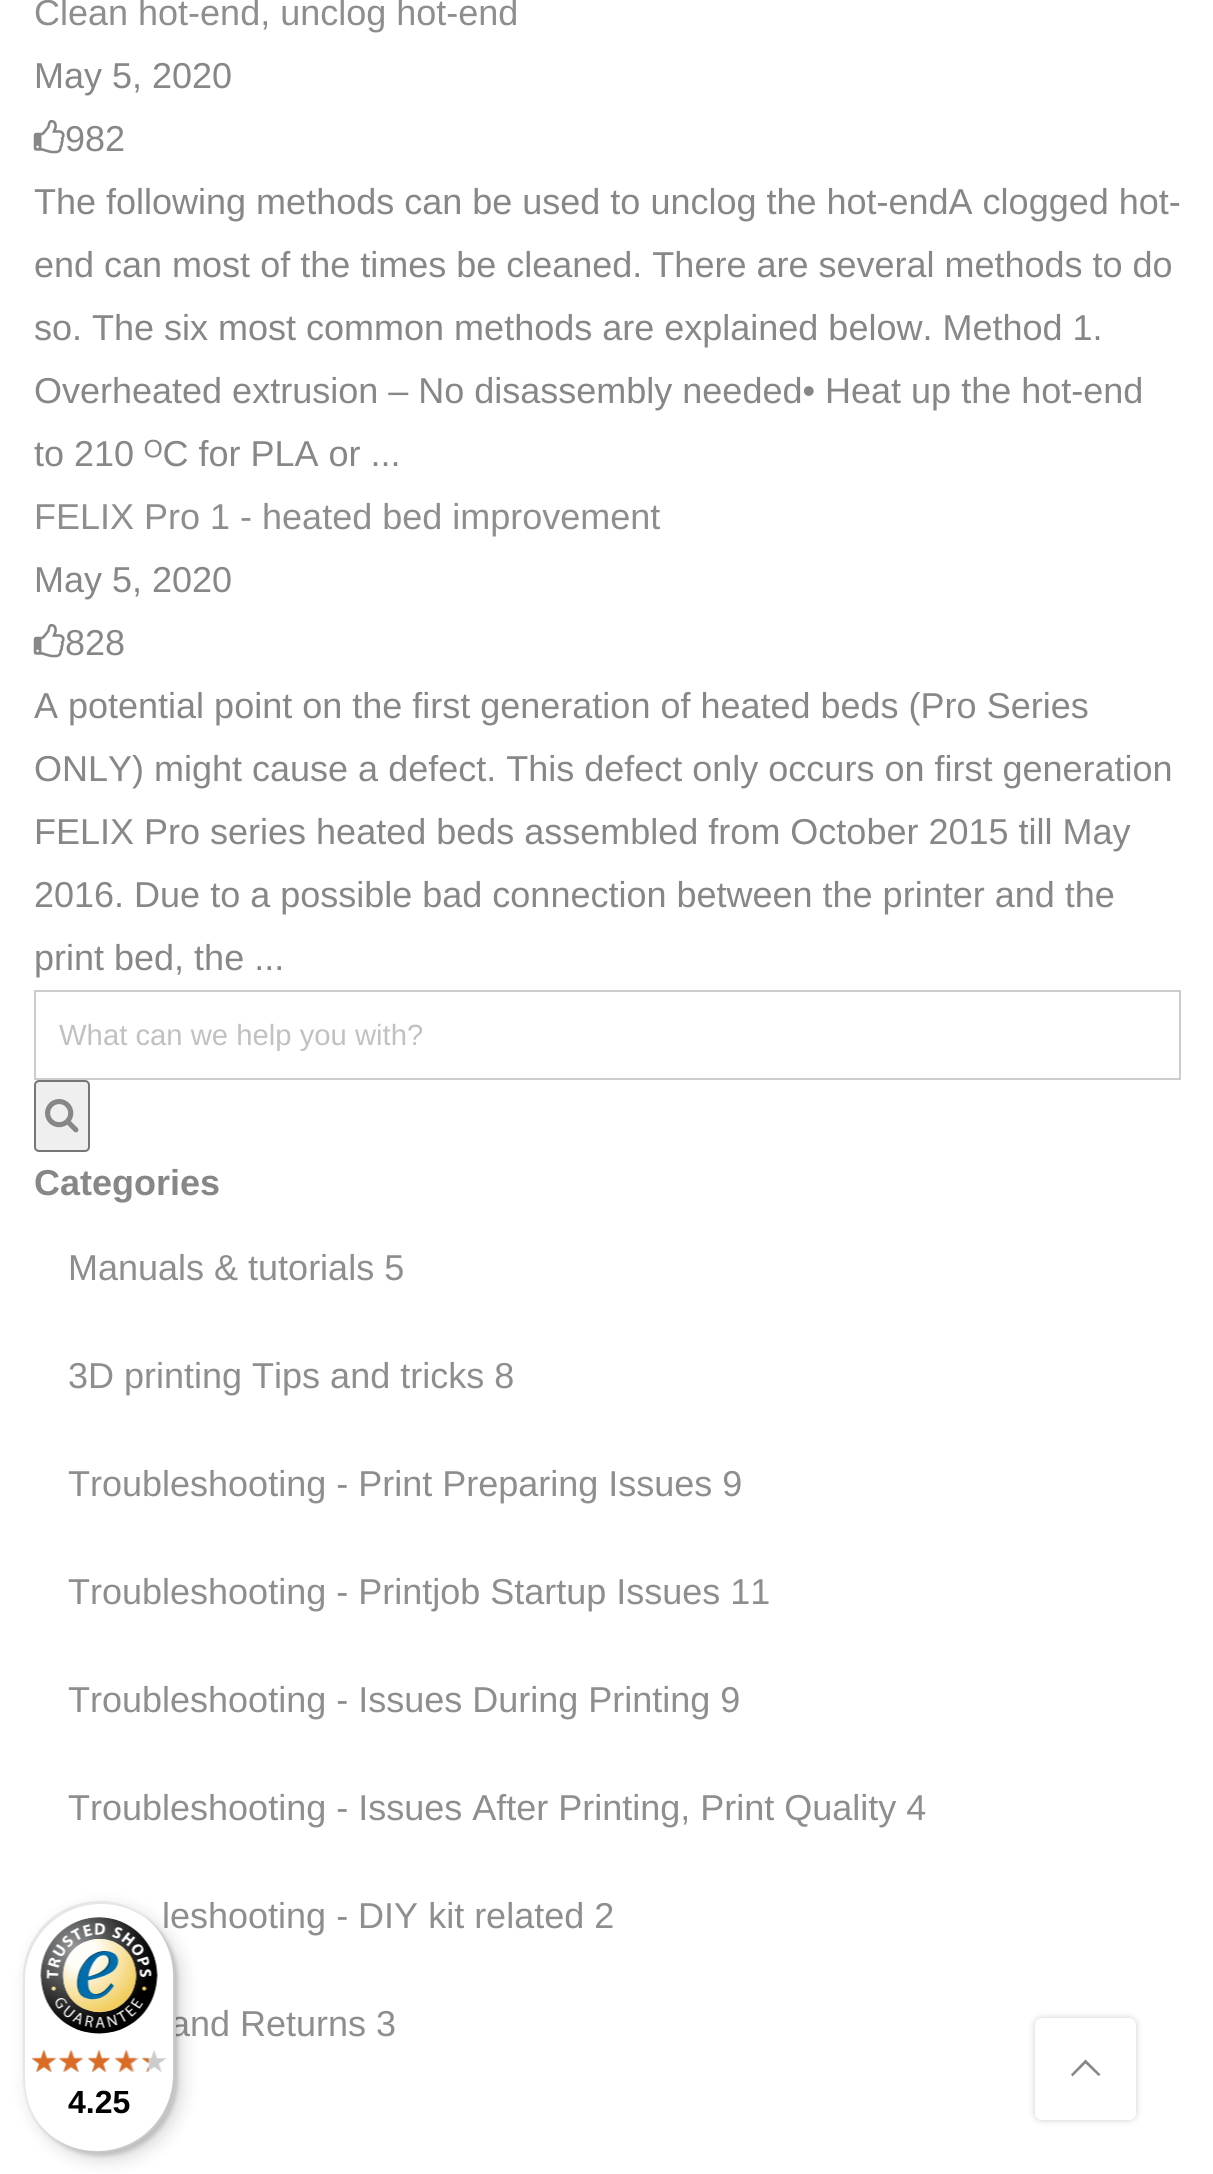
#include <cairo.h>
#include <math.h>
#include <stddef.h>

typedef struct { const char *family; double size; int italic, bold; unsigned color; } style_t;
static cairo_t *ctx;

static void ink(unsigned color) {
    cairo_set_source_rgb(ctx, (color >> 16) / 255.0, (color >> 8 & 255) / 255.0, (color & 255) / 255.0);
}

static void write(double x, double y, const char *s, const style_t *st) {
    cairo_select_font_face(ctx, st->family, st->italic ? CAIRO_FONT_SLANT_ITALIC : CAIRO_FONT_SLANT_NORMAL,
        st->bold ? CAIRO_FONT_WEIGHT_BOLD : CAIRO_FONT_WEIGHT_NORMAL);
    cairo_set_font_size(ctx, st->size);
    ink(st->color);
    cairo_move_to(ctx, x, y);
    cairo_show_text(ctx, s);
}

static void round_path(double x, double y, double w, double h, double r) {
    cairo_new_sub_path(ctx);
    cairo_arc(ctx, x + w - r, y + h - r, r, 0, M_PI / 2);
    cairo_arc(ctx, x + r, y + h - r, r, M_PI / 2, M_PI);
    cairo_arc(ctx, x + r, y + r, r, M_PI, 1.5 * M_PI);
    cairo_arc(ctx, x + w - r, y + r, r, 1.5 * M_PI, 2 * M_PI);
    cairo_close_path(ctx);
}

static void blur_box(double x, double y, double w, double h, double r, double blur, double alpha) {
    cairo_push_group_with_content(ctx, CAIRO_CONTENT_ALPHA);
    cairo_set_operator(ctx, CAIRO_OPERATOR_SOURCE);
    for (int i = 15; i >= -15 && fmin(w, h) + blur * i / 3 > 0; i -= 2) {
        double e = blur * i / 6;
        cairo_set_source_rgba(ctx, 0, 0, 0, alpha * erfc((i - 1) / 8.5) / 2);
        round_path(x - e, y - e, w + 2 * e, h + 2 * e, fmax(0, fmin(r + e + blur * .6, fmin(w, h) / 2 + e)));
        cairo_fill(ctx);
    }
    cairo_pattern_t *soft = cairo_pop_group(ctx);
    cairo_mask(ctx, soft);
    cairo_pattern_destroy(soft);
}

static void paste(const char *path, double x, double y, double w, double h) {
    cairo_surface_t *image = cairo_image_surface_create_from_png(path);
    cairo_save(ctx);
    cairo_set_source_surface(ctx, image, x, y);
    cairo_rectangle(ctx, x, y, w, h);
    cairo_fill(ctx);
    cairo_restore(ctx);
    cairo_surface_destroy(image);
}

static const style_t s1 = {"Liberation Sans", 36, 0, 0, 0x8e8e8e};
static const style_t s2 = {"Liberation Sans", 36, 0, 0, 0x878787};
static const style_t s3 = {"Liberation Sans", 29.25, 0, 0, 0xc1c1c1};
static const style_t s4 = {"Liberation Sans", 36, 0, 1, 0x878787};
static const style_t s5 = {"Liberation Sans", 32, 0, 1, 0x000000};

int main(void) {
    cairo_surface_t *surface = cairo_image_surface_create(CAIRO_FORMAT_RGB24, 1213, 2174);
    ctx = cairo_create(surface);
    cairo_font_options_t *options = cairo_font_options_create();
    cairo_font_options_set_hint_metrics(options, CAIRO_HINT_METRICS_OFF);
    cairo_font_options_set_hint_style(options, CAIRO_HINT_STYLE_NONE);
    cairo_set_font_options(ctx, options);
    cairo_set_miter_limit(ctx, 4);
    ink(0xffffff);
    cairo_paint(ctx);
    write(34, 25, "Clean hot-end, unclog hot-end", &s1);
    write(34, 88, "May 5, 2020", &s2);
    paste("pic1.png", 33, 119, 32, 35);
    write(65, 151, "982", &s2);
    write(34, 214, "The following methods can be used to unclog the hot-endA clogged hot-", &s2);
    write(34, 277, "end can most of the times be cleaned. There are several methods to do", &s2);
    write(34, 340, "so. The six most common methods are explained below. Method 1.", &s2);
    write(34, 403, "Overheated extrusion – No disassembly needed• Heat up the hot-end", &s2);
    write(34, 466, "to 210 ᴼC for PLA or ...", &s2);
    write(34, 529, "FELIX Pro 1 - heated bed improvement", &s1);
    write(34, 592, "May 5, 2020", &s2);
    paste("pic1.png", 33, 623, 32, 35);
    write(65, 655, "828", &s2);
    write(34, 718, "A potential point on the first generation of heated beds (Pro Series", &s2);
    write(34, 781, "ONLY) might cause a defect. This defect only occurs on first generation", &s2);
    write(34, 844, "FELIX Pro series heated beds assembled from October 2015 till May", &s2);
    write(34, 907, "2016. Due to a possible bad connection between the printer and the", &s2);
    write(34, 970, "print bed, the ...", &s2);
    cairo_rectangle(ctx, 35, 991, 1145, 88);
    ink(0xcccccc);
    cairo_stroke(ctx);
    cairo_save(ctx);
    cairo_rectangle(ctx, 59, 1017, 1098, 34);
    cairo_clip(ctx);
    write(59, 1045, "What can we help you with?", &s3);
    cairo_restore(ctx);
    ink(0xefefef);
    round_path(35, 1081, 54, 70, 4);
    cairo_fill_preserve(ctx);
    ink(0x767676);
    cairo_stroke(ctx);
    paste("pic2.png", 45, 1099, 34, 34);
    write(34, 1195, "Categories", &s4);
    write(68, 1280, "Manuals & tutorials 5", &s1);
    write(68, 1388, "3D printing Tips and tricks 8", &s1);
    write(68, 1496, "Troubleshooting - Print Preparing Issues 9", &s1);
    write(68, 1604, "Troubleshooting - Printjob Startup Issues 11", &s1);
    write(68, 1712, "Troubleshooting - Issues During Printing 9", &s1);
    write(68, 1820, "Troubleshooting - Issues After Printing, Print Quality 4", &s1);
    write(162, 1928, "leshooting - DIY kit related 2", &s1);
    write(170, 2036, "and Returns 3", &s1);
    ink(0x000000);
    blur_box(1035, 2018, 101, 102, 7, 3.5, 0.2);
    ink(0xffffff);
    round_path(1035, 2018, 101, 102, 7);
    cairo_fill(ctx);
    ink(0x878787);
    cairo_new_path(ctx);
    cairo_move_to(ctx, 1087.5, 2061.5);
    cairo_line_to(ctx, 1085.5, 2059.5);
    cairo_line_to(ctx, 1071, 2074.5);
    cairo_line_to(ctx, 1072.5, 2076.5);
    cairo_line_to(ctx, 1085.5, 2063.5);
    cairo_line_to(ctx, 1098.5, 2076);
    cairo_line_to(ctx, 1100.5, 2074.5);
    cairo_close_path(ctx);
    cairo_fill(ctx);
    ink(0x000000);
    blur_box(29, 1908, 153, 252, 76.5, 9, 0.15);
    blur_box(25, 1904, 153, 252, 76.5, 2, 0.15);
    ink(0xffffff);
    round_path(23, 1901, 153, 252, 76.5);
    cairo_fill(ctx);
    cairo_set_source_rgba(ctx, 0, 0, 0, 0.1);
    cairo_new_path(ctx);
    cairo_move_to(ctx, 101, 1904);
    cairo_curve_to(ctx, 127, 1904, 151, 1917, 165, 1938);
    cairo_curve_to(ctx, 151, 1916, 127, 1901, 100, 1901);
    cairo_curve_to(ctx, 57, 1901, 23, 1935, 23, 1978);
    cairo_line_to(ctx, 23, 2076);
    cairo_curve_to(ctx, 23, 2094, 29, 2110, 39, 2123);
    cairo_curve_to(ctx, 30, 2111, 25, 2095, 25, 2079);
    cairo_line_to(ctx, 25, 1980);
    cairo_curve_to(ctx, 25, 1938, 59, 1904, 101, 1904);
    cairo_close_path(ctx);
    cairo_fill(ctx);
    cairo_set_source_rgba(ctx, 0, 0, 0, 0.2);
    cairo_new_path(ctx);
    cairo_move_to(ctx, 52, 2136);
    cairo_curve_to(ctx, 65, 2147, 81, 2153, 100, 2153);
    cairo_curve_to(ctx, 142, 2153, 176, 2119, 176, 2076);
    cairo_line_to(ctx, 176, 1978);
    cairo_curve_to(ctx, 176, 1951, 163, 1929, 143, 1915);
    cairo_curve_to(ctx, 161, 1929, 173, 1951, 173, 1976);
    cairo_line_to(ctx, 173, 2074);
    cairo_curve_to(ctx, 173, 2117, 139, 2151, 97, 2151);
    cairo_curve_to(ctx, 80, 2151, 65, 2146, 52, 2136);
    cairo_close_path(ctx);
    cairo_fill(ctx);
    cairo_set_source_rgba(ctx, 0.196, 0.196, 0.196, 0.2);
    cairo_new_path(ctx);
    cairo_move_to(ctx, 64, 2144);
    cairo_curve_to(ctx, 75, 2150, 87, 2153, 100, 2153);
    cairo_curve_to(ctx, 142, 2153, 176, 2119, 176, 2076);
    cairo_line_to(ctx, 176, 1978);
    cairo_curve_to(ctx, 176, 1950, 161, 1925, 139, 1912);
    cairo_curve_to(ctx, 160, 1925, 174, 1949, 174, 1976);
    cairo_line_to(ctx, 174, 2075);
    cairo_curve_to(ctx, 174, 2118, 140, 2152, 98, 2152);
    cairo_curve_to(ctx, 86, 2152, 74, 2149, 64, 2144);
    cairo_close_path(ctx);
    cairo_fill(ctx);
    cairo_set_source_rgba(ctx, 1, 1, 1, 0.3);
    cairo_new_path(ctx);
    cairo_move_to(ctx, 59, 2141);
    cairo_curve_to(ctx, 71, 2149, 85, 2153, 100, 2153);
    cairo_curve_to(ctx, 142, 2153, 176, 2119, 176, 2076);
    cairo_line_to(ctx, 176, 1978);
    cairo_curve_to(ctx, 176, 1949, 161, 1924, 138, 1911);
    cairo_curve_to(ctx, 159, 1925, 174, 1949, 174, 1977);
    cairo_line_to(ctx, 174, 2076);
    cairo_curve_to(ctx, 174, 2118, 140, 2152, 98, 2152);
    cairo_curve_to(ctx, 84, 2152, 71, 2148, 59, 2141);
    cairo_close_path(ctx);
    cairo_fill(ctx);
    paste("pic3.png", 40, 1917, 118, 117);
    paste("pic9.png", 31, 2050, 25, 22);
    paste("pic4.png", 31, 2049, 26, 23);
    paste("pic10.png", 61, 2050, 22, 22);
    paste("pic5.png", 58, 2049, 26, 23);
    paste("pic11.png", 88, 2050, 22, 22);
    paste("pic6.png", 87, 2049, 24, 23);
    paste("pic12.png", 115, 2050, 25, 22);
    paste("pic7.png", 114, 2049, 24, 23);
    paste("pic13.png", 142, 2050, 25, 22);
    paste("pic8.png", 141, 2057, 8, 15);
    write(68, 2113, "4.25", &s5);
    cairo_surface_write_to_png(surface, "screenshot.png");
    cairo_font_options_destroy(options);
    cairo_destroy(ctx);
    cairo_surface_destroy(surface);
    return 0;
}
